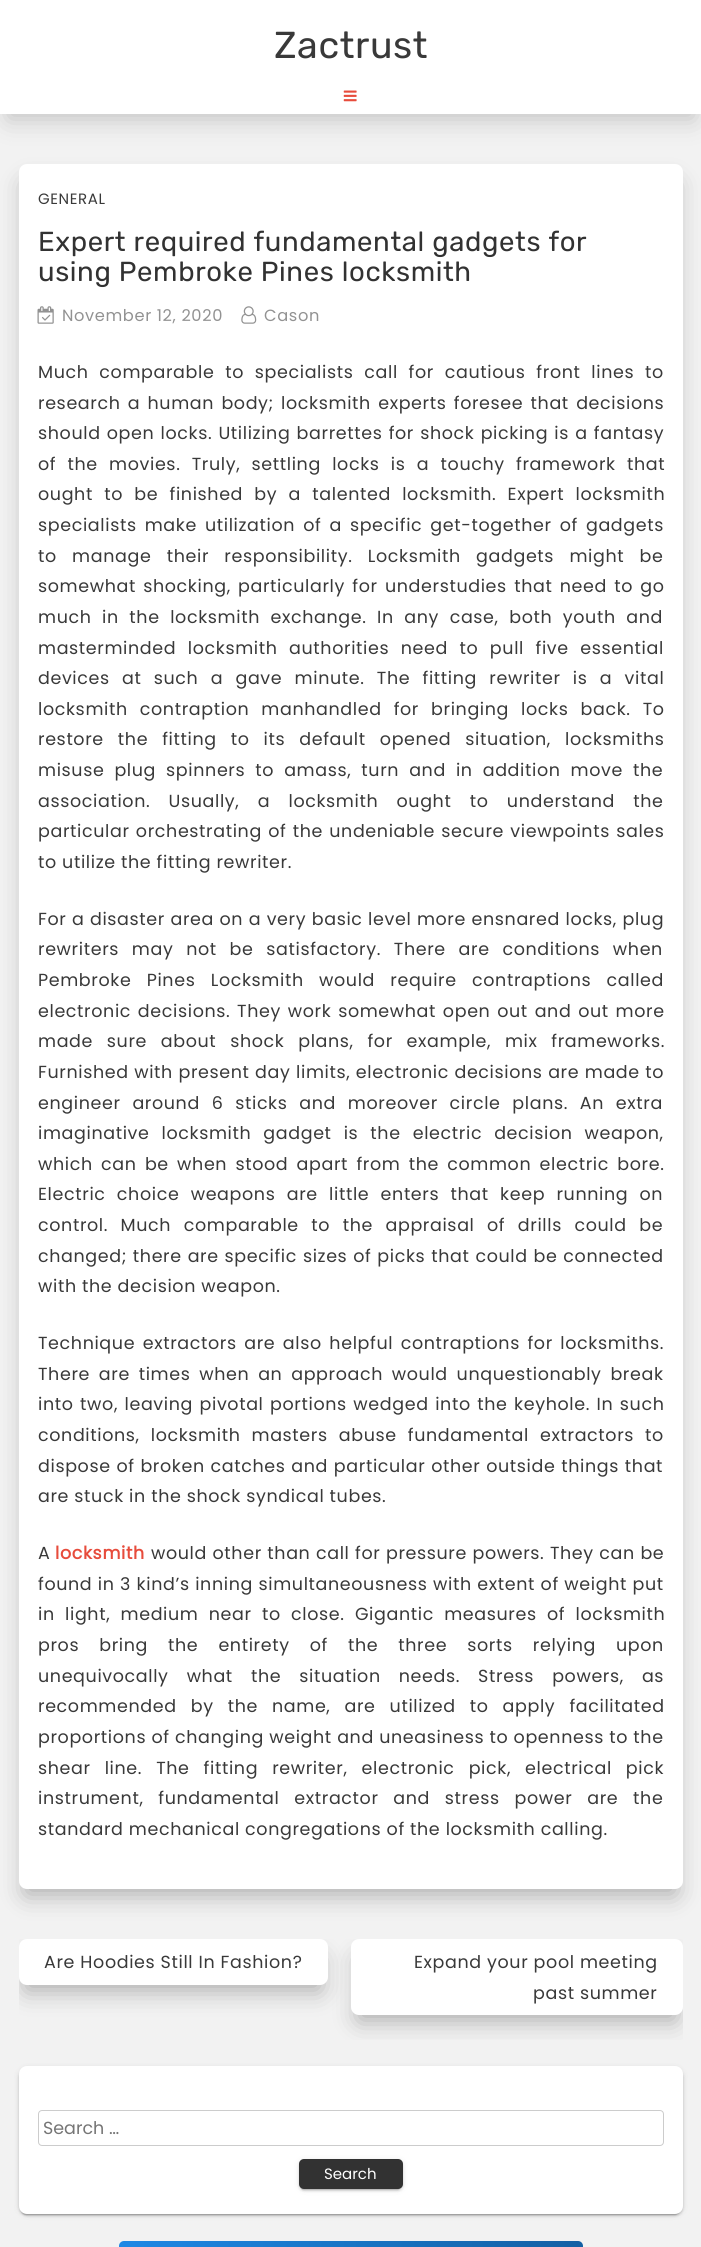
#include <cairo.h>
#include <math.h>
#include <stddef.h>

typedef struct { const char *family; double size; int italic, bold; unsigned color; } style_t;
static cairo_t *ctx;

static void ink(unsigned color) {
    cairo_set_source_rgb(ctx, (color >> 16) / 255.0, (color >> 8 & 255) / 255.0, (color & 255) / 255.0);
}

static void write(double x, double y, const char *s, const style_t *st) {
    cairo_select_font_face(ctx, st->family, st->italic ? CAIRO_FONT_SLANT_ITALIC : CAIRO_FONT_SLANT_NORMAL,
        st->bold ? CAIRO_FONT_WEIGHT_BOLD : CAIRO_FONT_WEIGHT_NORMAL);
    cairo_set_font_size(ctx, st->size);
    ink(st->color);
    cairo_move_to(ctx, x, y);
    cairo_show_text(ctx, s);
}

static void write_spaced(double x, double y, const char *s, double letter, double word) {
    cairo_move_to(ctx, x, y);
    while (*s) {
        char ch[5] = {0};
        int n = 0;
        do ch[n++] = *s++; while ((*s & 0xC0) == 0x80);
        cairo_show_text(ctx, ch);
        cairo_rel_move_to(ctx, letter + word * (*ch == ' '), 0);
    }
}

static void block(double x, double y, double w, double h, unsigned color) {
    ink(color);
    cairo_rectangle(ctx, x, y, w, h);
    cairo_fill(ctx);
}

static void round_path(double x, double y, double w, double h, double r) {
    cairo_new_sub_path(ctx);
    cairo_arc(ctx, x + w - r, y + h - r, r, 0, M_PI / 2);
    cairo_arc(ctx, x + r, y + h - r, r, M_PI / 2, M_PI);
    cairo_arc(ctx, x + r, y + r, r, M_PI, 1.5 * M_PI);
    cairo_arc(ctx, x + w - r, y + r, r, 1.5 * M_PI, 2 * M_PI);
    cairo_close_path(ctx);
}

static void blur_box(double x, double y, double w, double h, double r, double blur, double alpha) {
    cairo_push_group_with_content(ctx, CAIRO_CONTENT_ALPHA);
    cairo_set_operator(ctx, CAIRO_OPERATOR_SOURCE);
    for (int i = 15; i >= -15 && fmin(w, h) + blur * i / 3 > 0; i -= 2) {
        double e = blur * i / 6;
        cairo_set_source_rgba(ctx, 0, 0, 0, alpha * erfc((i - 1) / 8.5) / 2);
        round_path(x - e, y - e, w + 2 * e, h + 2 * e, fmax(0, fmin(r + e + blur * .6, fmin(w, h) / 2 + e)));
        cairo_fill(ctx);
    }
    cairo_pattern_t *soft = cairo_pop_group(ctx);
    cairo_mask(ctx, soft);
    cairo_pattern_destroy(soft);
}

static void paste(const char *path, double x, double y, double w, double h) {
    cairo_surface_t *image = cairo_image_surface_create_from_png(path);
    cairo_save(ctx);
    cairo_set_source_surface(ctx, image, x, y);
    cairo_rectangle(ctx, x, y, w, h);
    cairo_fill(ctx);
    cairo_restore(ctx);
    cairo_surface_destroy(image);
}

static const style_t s1 = {"Poppins", 17.5, 0, 0, 0x757575};
static const style_t s2 = {"Poppins", 15, 0, 0, 0xffffff};

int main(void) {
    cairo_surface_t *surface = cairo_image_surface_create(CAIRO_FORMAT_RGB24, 701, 2247);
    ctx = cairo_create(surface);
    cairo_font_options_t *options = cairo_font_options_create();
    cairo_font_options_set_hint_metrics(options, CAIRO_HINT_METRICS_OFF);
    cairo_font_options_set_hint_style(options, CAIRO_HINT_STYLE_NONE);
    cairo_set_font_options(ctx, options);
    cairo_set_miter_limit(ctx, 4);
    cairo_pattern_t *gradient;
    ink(0xf2f2f2);
    cairo_paint(ctx);
    ink(0x000000);
    blur_box(8, 20, 686, 99, 0, 12.5, 0.2);
    block(0, 0, 701, 114, 0xffffff);
    cairo_select_font_face(ctx, "Rubik Light", CAIRO_FONT_SLANT_NORMAL, CAIRO_FONT_WEIGHT_NORMAL);
    cairo_set_font_size(ctx, 37.5);
    ink(0x393939);
    write_spaced(274, 58, "Zactrust", 0.62, 0);
    paste("pic1.png", 343, 90, 14, 12);
    ink(0x000000);
    blur_box(26, 184, 649, 1710, 0, 12.5, 0.3);
    ink(0xffffff);
    round_path(19, 164, 664, 1725, 8);
    cairo_fill(ctx);
    cairo_select_font_face(ctx, "Poppins", CAIRO_FONT_SLANT_NORMAL, CAIRO_FONT_WEIGHT_NORMAL);
    cairo_set_font_size(ctx, 15);
    ink(0x393939);
    write_spaced(38, 204, "GENERAL", 0.62, 0);
    cairo_select_font_face(ctx, "Rubik Light", CAIRO_FONT_SLANT_NORMAL, CAIRO_FONT_WEIGHT_NORMAL);
    cairo_set_font_size(ctx, 27.5);
    ink(0x323232);
    write_spaced(38, 251, "Expert required fundamental gadgets for", 0.62, 0);
    write_spaced(38, 281, "using Pembroke Pines locksmith", 0.62, 0);
    paste("pic2.png", 37, 306, 17, 18);
    cairo_select_font_face(ctx, "Poppins", CAIRO_FONT_SLANT_NORMAL, CAIRO_FONT_WEIGHT_NORMAL);
    cairo_set_font_size(ctx, 16.25);
    ink(0x929292);
    write_spaced(62, 321, "November 12, 2020", 0.62, 0);
    paste("pic3.png", 241, 306, 16, 18);
    write_spaced(264, 321, "Cason", 0.62, 0);
    cairo_set_font_size(ctx, 17.5);
    ink(0x393939);
    write_spaced(38, 378, "Much comparable to specialists call for cautious front lines to", 0.62, 5.5);
    write_spaced(38, 409, "research a human body; locksmith experts foresee that decisions", 0.62, 2);
    write_spaced(38, 439, "should open locks. Utilizing barrettes for shock picking is a fantasy", 0.62, 0.9);
    write_spaced(38, 470, "of the movies. Truly, settling locks is a touchy framework that", 0.62, 6);
    write_spaced(38, 500, "ought to be finished by a talented locksmith. Expert locksmith", 0.62, 6);
    write_spaced(38, 531, "specialists make utilization of a specific get-together of gadgets", 0.62, 2.75);
    write_spaced(38, 562, "to manage their responsibility. Locksmith gadgets might be", 0.62, 10);
    write_spaced(38, 592, "somewhat shocking, particularly for understudies that need to go", 0.62, 2);
    write_spaced(38, 623, "much in the locksmith exchange. In any case, both youth and", 0.62, 5.25);
    write_spaced(38, 654, "masterminded locksmith authorities need to pull five essential", 0.62, 6.25);
    write_spaced(38, 684, "devices at such a gave minute. The fitting rewriter is a vital", 0.62, 7);
    write_spaced(38, 715, "locksmith contraption manhandled for bringing locks back. To", 0.62, 6.75);
    write_spaced(38, 745, "restore the fitting to its default opened situation, locksmiths", 0.62, 8.75);
    write_spaced(38, 776, "misuse plug spinners to amass, turn and in addition move the", 0.62, 4.75);
    write_spaced(38, 807, "association. Usually, a locksmith ought to understand the", 0.62, 13);
    write_spaced(38, 837, "particular orchestrating of the undeniable secure viewpoints sales", 0.62, 1);
    write_spaced(38, 868, "to utilize the fitting rewriter.", 0.62, 0);
    write_spaced(38, 925, "For a disaster area on a very basic level more ensnared locks, plug", 0.62, 0.25);
    write_spaced(38, 955, "rewriters may not be satisfactory. There are conditions when", 0.62, 7.5);
    write_spaced(38, 986, "Pembroke Pines Locksmith would require contraptions called", 0.62, 10);
    write_spaced(38, 1017, "electronic decisions. They work somewhat open out and out more", 0.62, 1.5);
    write_spaced(38, 1047, "made sure about shock plans, for example, mix frameworks.", 0.62, 8.5);
    write_spaced(38, 1078, "Furnished with present day limits, electronic decisions are made to", 0.62, 0.25);
    write_spaced(38, 1109, "engineer around 6 sticks and moreover circle plans. An extra", 0.62, 6.5);
    write_spaced(38, 1139, "imaginative locksmith gadget is the electric decision weapon,", 0.62, 6.75);
    write_spaced(38, 1170, "which can be when stood apart from the common electric bore.", 0.62, 3);
    write_spaced(38, 1200, "Electric choice weapons are little enters that keep running on", 0.62, 6);
    write_spaced(38, 1231, "control. Much comparable to the appraisal of drills could be", 0.62, 7.25);
    write_spaced(38, 1262, "changed; there are specific sizes of picks that could be connected", 0.62, 0.6);
    write_spaced(38, 1292, "with the decision weapon.", 0.62, 0);
    write_spaced(38, 1349, "Technique extractors are also helpful contraptions for locksmiths.", 0.62, 2.25);
    write_spaced(38, 1380, "There are times when an approach would unquestionably break", 0.62, 3.5);
    write_spaced(38, 1410, "into two, leaving pivotal portions wedged into the keyhole. In such", 0.62, 1.25);
    write_spaced(38, 1441, "conditions, locksmith masters abuse fundamental extractors to", 0.62, 5.75);
    write_spaced(38, 1472, "dispose of broken catches and particular other outside things that", 0.62, 0.5);
    write_spaced(38, 1502, "are stuck in the shock syndical tubes.", 0.62, 0);
    write_spaced(38, 1559, "A", 0.62, 0);
    cairo_select_font_face(ctx, "Poppins", CAIRO_FONT_SLANT_NORMAL, CAIRO_FONT_WEIGHT_BOLD);
    ink(0xe74c3c);
    write_spaced(55, 1559, "locksmith", 0.62, 0);
    cairo_select_font_face(ctx, "Poppins", CAIRO_FONT_SLANT_NORMAL, CAIRO_FONT_WEIGHT_NORMAL);
    ink(0x393939);
    write_spaced(151, 1559, "would other than call for pressure powers. They can be", 0.62, 0.25);
    write_spaced(38, 1590, "found in 3 kind’s inning simultaneousness with extent of weight put", 0.62, 0.25);
    write_spaced(38, 1620, "in light, medium near to close. Gigantic measures of locksmith", 0.62, 5);
    write_spaced(38, 1651, "pros bring the entirety of the three sorts relying upon", 0.62, 14.75);
    write_spaced(38, 1682, "unequivocally what the situation needs. Stress powers, as", 0.62, 12.75);
    write_spaced(38, 1712, "recommended by the name, are utilized to apply facilitated", 0.62, 8.75);
    write_spaced(38, 1743, "proportions of changing weight and uneasiness to openness to the", 0.62, 0);
    write_spaced(38, 1774, "shear line. The fitting rewriter, electronic pick, electrical pick", 0.62, 8.75);
    write_spaced(38, 1804, "instrument, fundamental extractor and stress power are the", 0.62, 9.5);
    write_spaced(38, 1835, "standard mechanical congregations of the locksmith calling.", 0.62, 0);
    cairo_save(ctx);
    cairo_rectangle(ctx, 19, 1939, 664, 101);
    cairo_clip(ctx);
    ink(0x000000);
    blur_box(26, 1959, 294, 31, 0, 12.5, 0.3);
    cairo_restore(ctx);
    ink(0xffffff);
    round_path(19, 1939, 309, 46, 8);
    cairo_fill(ctx);
    ink(0x393939);
    write_spaced(44, 1968, "Are Hoodies Still In Fashion?", 0.62, 0);
    cairo_save(ctx);
    cairo_rectangle(ctx, 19, 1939, 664, 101);
    cairo_clip(ctx);
    ink(0x000000);
    blur_box(359, 1959, 316, 61, 0, 12.5, 0.3);
    cairo_restore(ctx);
    ink(0xffffff);
    round_path(351, 1939, 332, 76, 8);
    cairo_fill(ctx);
    ink(0x393939);
    write_spaced(414, 1968, "Expand your pool meeting", 0.62, 0);
    write_spaced(533, 1999, "past summer", 0.62, 0);
    ink(0x000000);
    blur_box(19, 2068, 664, 147, 8, 3, 0.12);
    blur_box(21, 2073, 659, 142, 5, 0.5, 0.2);
    blur_box(19, 2069, 664, 147, 8, 1, 0.14);
    ink(0xffffff);
    round_path(19, 2066, 664, 148, 8);
    cairo_fill(ctx);
    round_path(38.5, 2110.5, 625, 35, 3.5);
    ink(0xcccccc);
    cairo_set_line_width(ctx, 1);
    cairo_stroke(ctx);
    write(43, 2134, "Search …", &s1);
    ink(0x323232);
    blur_box(299, 2160, 104, 30, 5, 3, 0.12);
    blur_box(301, 2165, 99, 25, 2.5, 0.5, 0.2);
    blur_box(299, 2161, 104, 30, 5, 1, 0.14);
    ink(0x323232);
    round_path(299, 2159, 104, 30, 5);
    cairo_fill(ctx);
    write(324, 2179, "Search", &s2);
    gradient = cairo_pattern_create_linear(119, 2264, 583, 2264);
    cairo_pattern_add_color_stop_rgba(gradient, 0, 0.118, 0.533, 0.898, 1);
    cairo_pattern_add_color_stop_rgba(gradient, 1, 0.075, 0.376, 0.643, 1);
    cairo_set_source(ctx, gradient);
    cairo_pattern_destroy(gradient);
    round_path(119, 2241, 464, 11, 5);
    cairo_fill(ctx);
    cairo_surface_write_to_png(surface, "screenshot.png");
    cairo_font_options_destroy(options);
    cairo_destroy(ctx);
    cairo_surface_destroy(surface);
    return 0;
}
